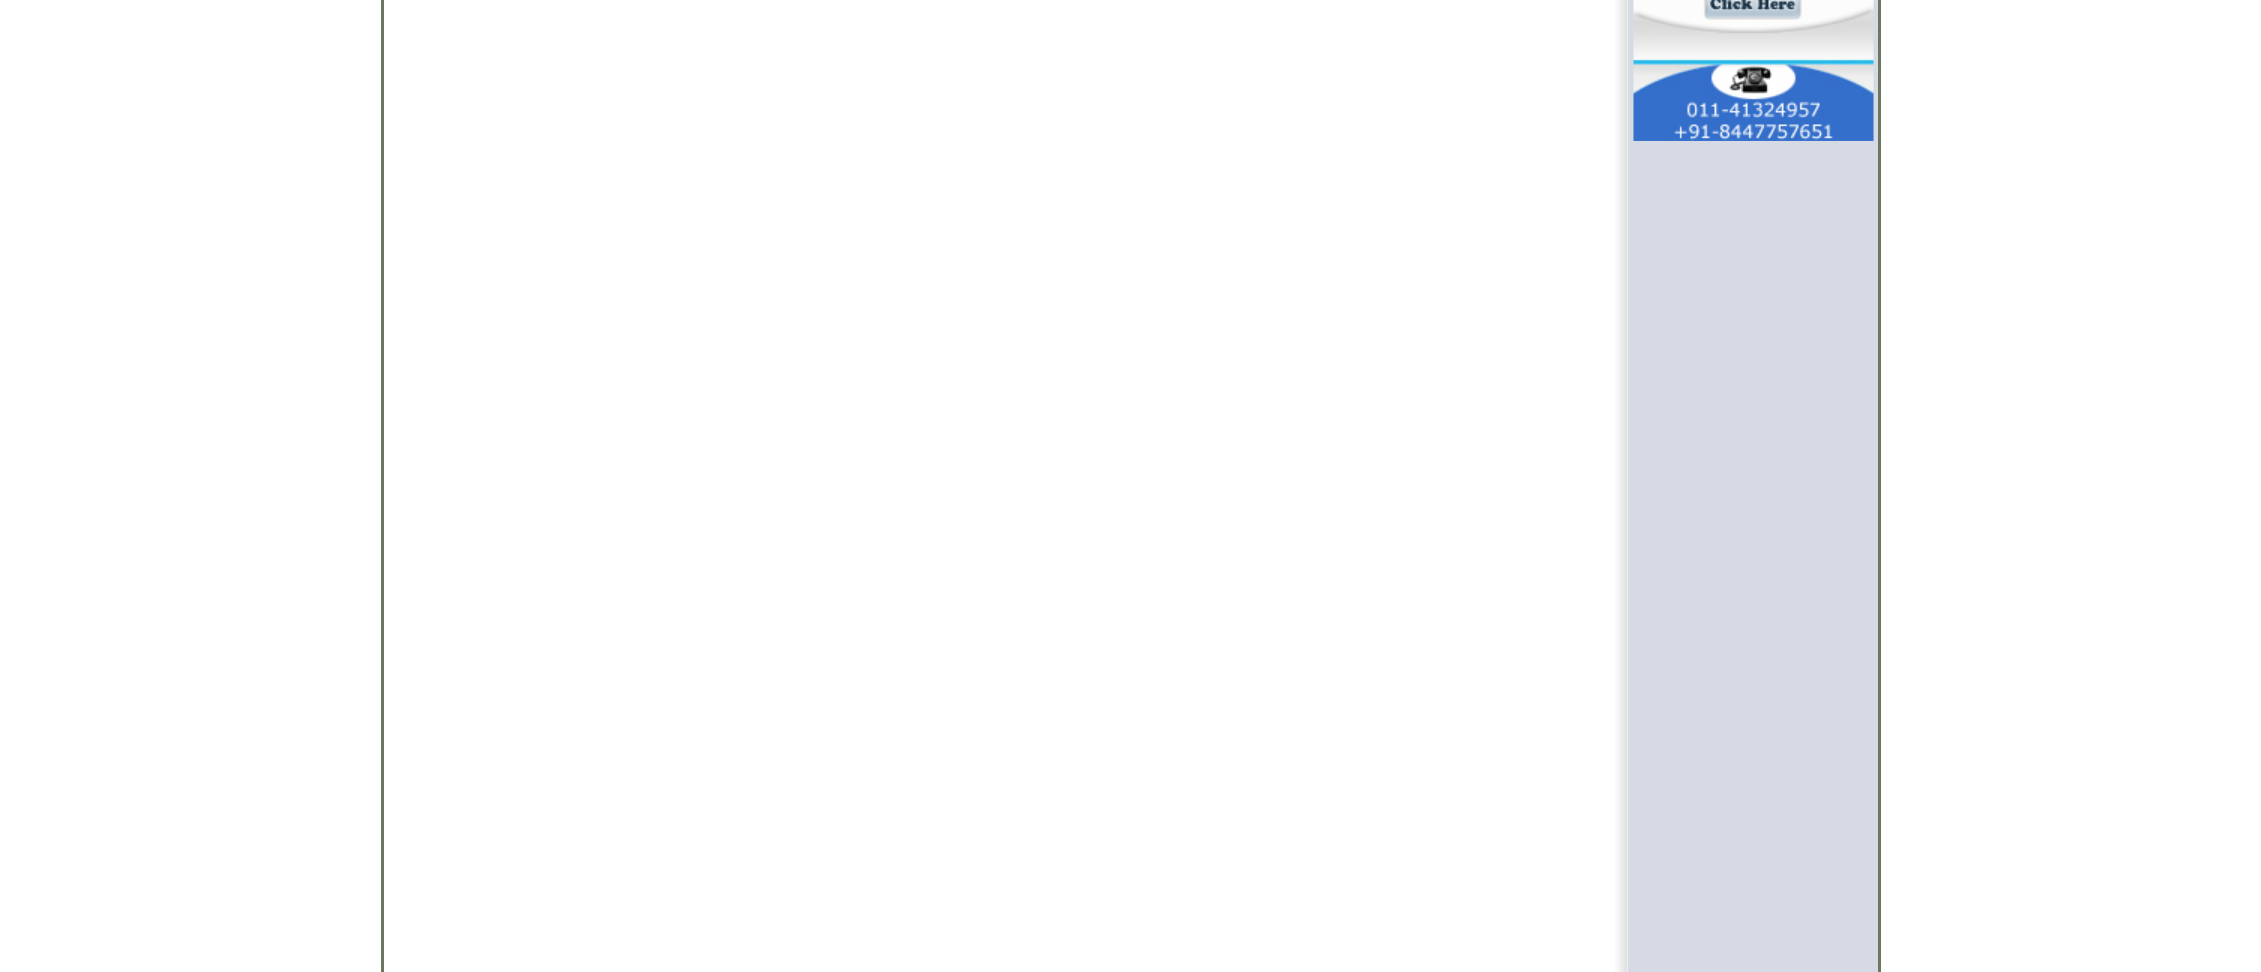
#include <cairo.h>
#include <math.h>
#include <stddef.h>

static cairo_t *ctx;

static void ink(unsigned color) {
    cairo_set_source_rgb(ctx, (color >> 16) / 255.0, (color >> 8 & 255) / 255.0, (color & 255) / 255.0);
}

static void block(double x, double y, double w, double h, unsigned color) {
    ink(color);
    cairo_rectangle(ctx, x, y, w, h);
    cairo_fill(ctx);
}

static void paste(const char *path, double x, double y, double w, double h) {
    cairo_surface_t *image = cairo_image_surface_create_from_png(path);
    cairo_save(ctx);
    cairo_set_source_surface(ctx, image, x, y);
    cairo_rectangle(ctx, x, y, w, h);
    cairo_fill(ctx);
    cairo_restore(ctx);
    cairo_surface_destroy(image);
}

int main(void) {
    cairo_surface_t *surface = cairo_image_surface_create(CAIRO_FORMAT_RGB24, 2261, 972);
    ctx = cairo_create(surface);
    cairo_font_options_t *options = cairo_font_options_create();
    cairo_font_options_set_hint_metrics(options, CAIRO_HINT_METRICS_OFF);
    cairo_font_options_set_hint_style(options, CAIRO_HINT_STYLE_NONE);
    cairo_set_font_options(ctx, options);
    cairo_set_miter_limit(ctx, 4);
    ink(0xffffff);
    cairo_paint(ctx);
    block(381, 0, 3, 972, 0x6c7660);
    paste("pic1.png", 1615, 0, 13, 972);
    block(1628, 0, 250, 972, 0xd5dae4);
    paste("pic2.png", 1633, 0, 241, 141);
    block(1878, 0, 3, 972, 0x6c7660);
    cairo_surface_write_to_png(surface, "screenshot.png");
    cairo_font_options_destroy(options);
    cairo_destroy(ctx);
    cairo_surface_destroy(surface);
    return 0;
}
